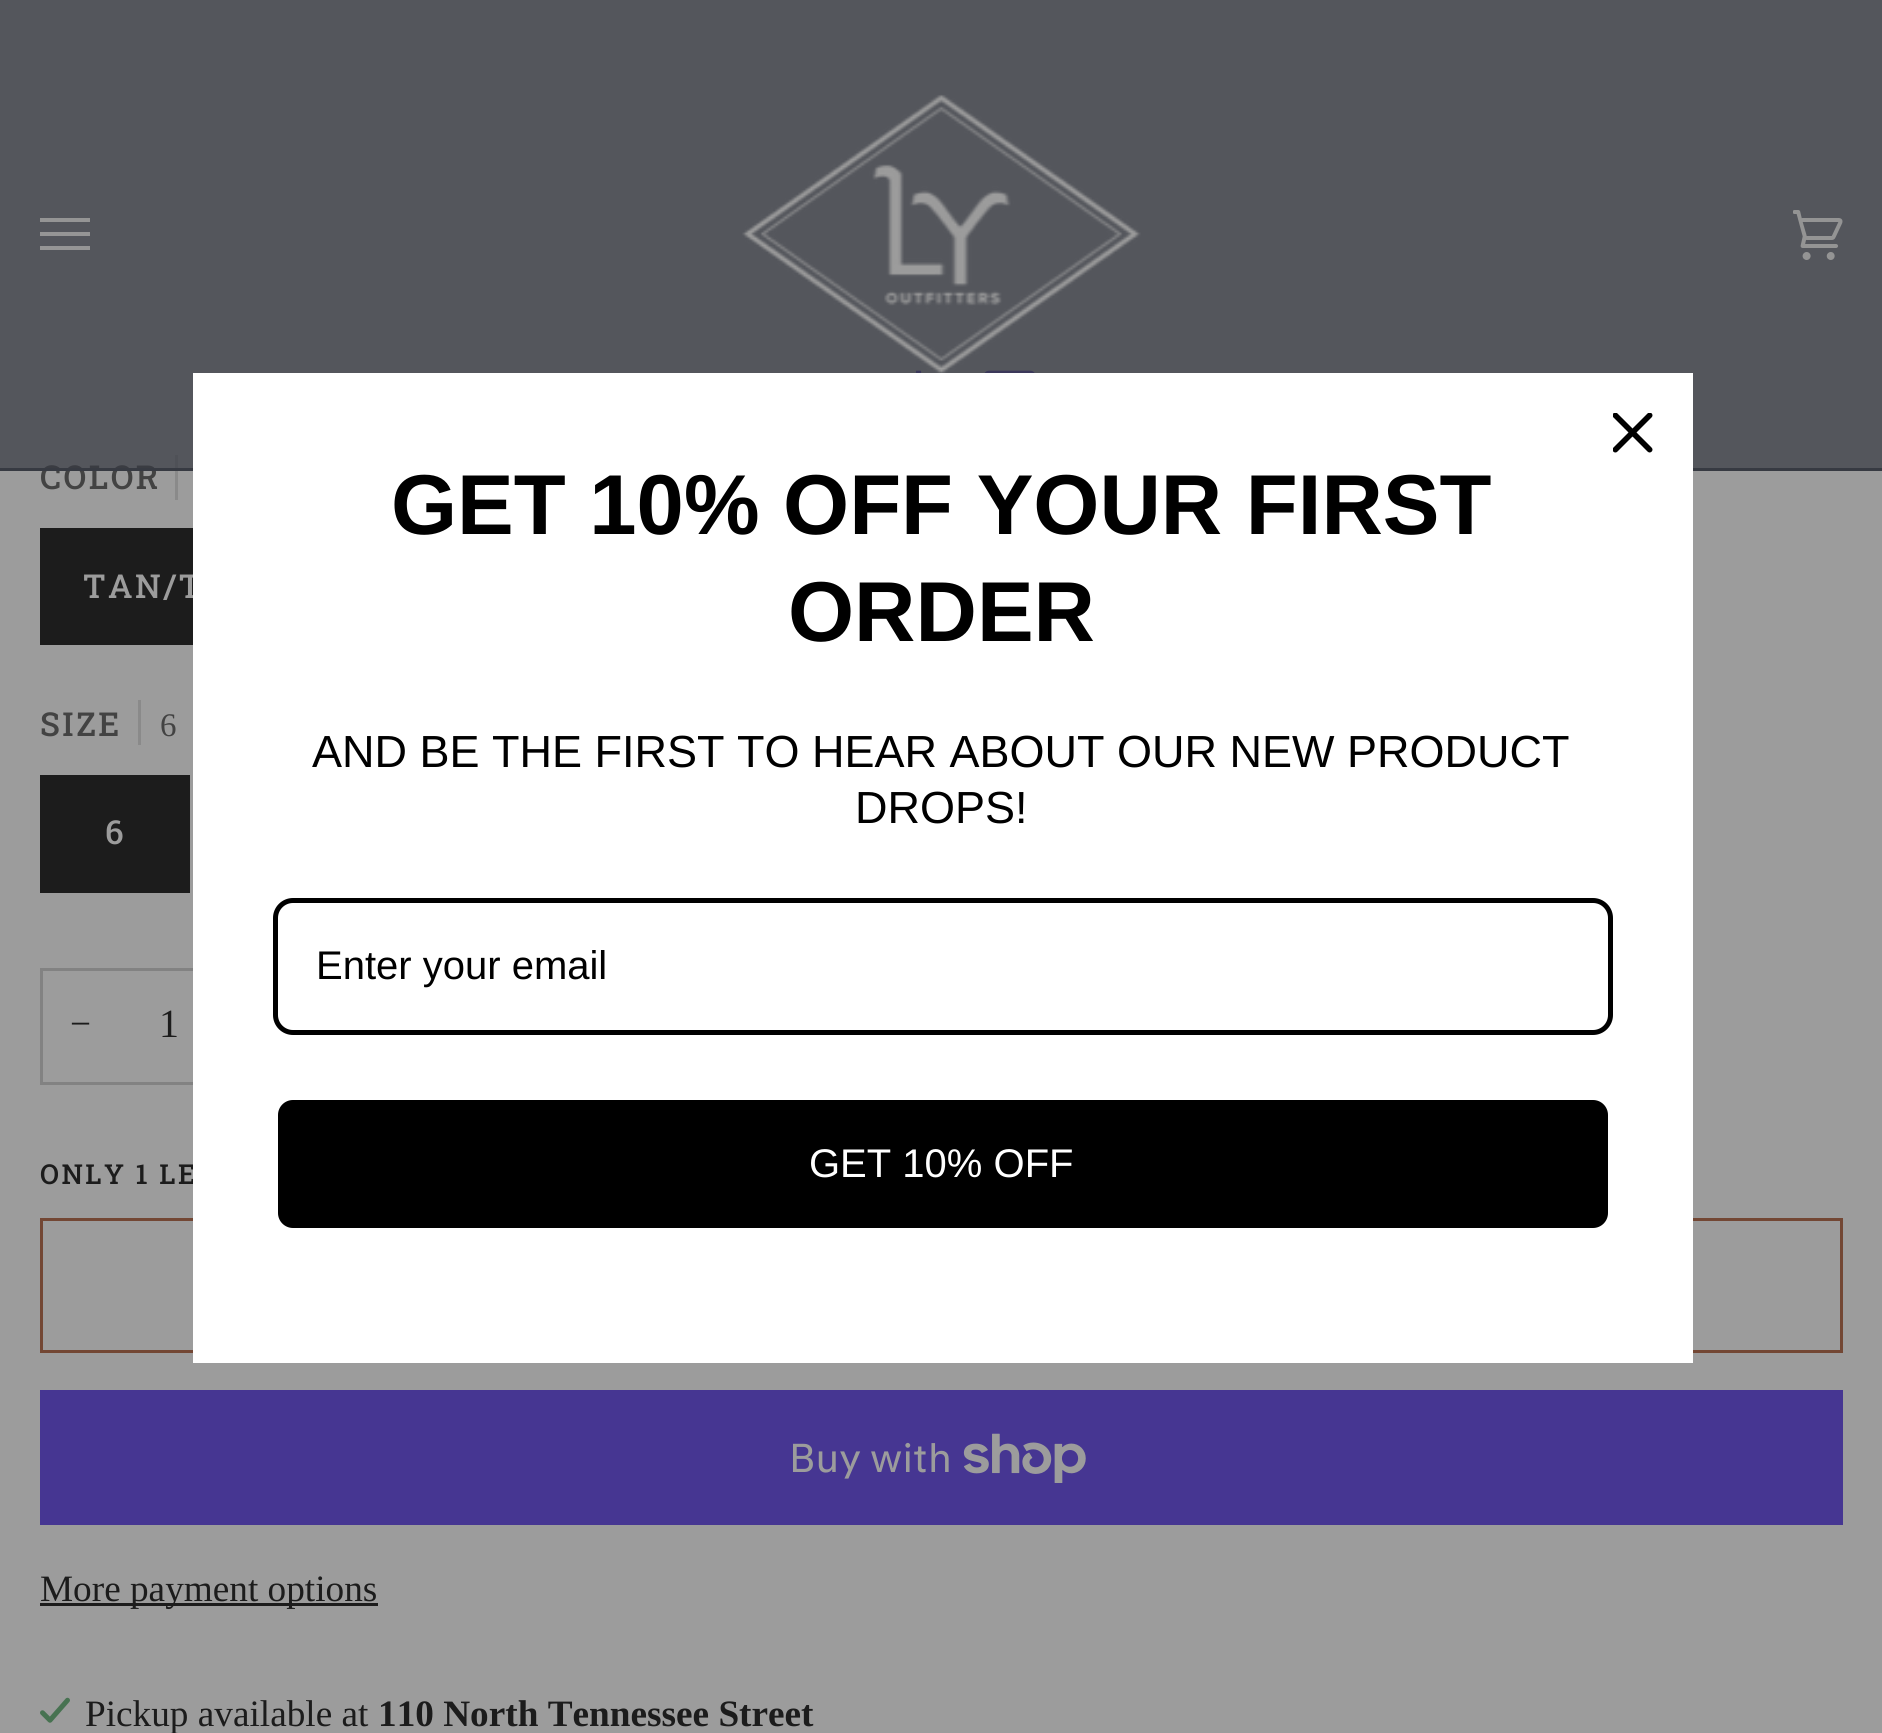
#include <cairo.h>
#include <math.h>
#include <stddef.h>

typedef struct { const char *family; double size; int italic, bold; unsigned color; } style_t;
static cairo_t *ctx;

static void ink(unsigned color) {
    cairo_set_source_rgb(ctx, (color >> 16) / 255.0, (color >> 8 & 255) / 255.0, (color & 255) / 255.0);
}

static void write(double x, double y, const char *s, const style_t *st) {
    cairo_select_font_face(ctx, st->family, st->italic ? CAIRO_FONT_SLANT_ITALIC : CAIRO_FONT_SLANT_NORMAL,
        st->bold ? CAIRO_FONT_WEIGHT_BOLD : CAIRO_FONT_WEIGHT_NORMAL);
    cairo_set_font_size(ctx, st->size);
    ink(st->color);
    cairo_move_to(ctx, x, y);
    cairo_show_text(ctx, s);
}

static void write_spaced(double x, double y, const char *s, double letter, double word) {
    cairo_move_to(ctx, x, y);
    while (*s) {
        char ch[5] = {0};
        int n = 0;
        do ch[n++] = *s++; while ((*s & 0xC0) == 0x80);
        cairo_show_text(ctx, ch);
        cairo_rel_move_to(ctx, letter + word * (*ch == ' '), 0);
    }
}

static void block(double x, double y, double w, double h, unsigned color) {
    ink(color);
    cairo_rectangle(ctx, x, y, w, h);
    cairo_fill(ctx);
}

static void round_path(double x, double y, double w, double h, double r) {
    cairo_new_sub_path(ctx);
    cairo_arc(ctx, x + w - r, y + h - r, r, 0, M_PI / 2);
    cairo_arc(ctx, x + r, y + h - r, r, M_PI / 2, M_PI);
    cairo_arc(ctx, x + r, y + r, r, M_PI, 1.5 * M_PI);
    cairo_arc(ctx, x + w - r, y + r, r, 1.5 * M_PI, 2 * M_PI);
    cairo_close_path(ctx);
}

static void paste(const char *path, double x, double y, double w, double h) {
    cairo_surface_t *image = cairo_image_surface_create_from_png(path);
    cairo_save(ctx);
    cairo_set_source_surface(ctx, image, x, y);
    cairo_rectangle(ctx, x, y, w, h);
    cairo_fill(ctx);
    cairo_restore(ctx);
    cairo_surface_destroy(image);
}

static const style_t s1 = {"Liberation Serif", 33, 0, 0, 0x434343};
static const style_t s2 = {"Liberation Serif", 37.25, 0, 0, 0x1c1c1c};
static const style_t s3 = {"Liberation Serif", 40, 0, 0, 0x1c1c1c};
static const style_t s4 = {"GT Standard", 40, 0, 0, 0x9c9c9c};
static const style_t s5 = {"Liberation Serif", 37.25, 0, 1, 0x1c1c1c};
static const style_t s6 = {"Liberation Sans", 85, 0, 1, 0x000000};
static const style_t s7 = {"Liberation Sans", 45, 0, 0, 0x000000};
static const style_t s8 = {"Liberation Sans", 40, 0, 0, 0x000000};
static const style_t s9 = {"Liberation Sans", 40, 0, 0, 0xffffff};

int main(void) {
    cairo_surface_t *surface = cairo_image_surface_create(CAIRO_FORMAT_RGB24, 1882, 1733);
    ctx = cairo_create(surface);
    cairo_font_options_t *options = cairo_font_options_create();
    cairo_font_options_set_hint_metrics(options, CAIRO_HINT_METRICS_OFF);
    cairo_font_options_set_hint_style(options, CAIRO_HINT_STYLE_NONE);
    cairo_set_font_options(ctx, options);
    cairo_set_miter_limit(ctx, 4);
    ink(0x9c9c9c);
    cairo_paint(ctx);
    cairo_select_font_face(ctx, "Roboto Slab Medium", CAIRO_FONT_SLANT_NORMAL, CAIRO_FONT_WEIGHT_NORMAL);
    cairo_set_font_size(ctx, 33);
    ink(0x434343);
    write_spaced(40, 489, "COLOR", 2.5, 0);
    block(175, 455, 3, 45, 0x8a8a8a);
    block(0, 468, 1882, 3, 0x373a42);
    paste("pic3.png", 915, 370, 120, 3);
    cairo_set_source_rgba(ctx, 0.216, 0.227, 0.259, 0.7);
    cairo_rectangle(ctx, 0, 0, 1882, 468);
    cairo_fill(ctx);
    ink(0x959595);
    cairo_new_path(ctx);
    cairo_move_to(ctx, 40, 218);
    cairo_line_to(ctx, 90, 218);
    cairo_line_to(ctx, 90, 222);
    cairo_line_to(ctx, 40, 222);
    cairo_close_path(ctx);
    cairo_move_to(ctx, 40, 232);
    cairo_line_to(ctx, 90, 232);
    cairo_line_to(ctx, 90, 236);
    cairo_line_to(ctx, 40, 236);
    cairo_close_path(ctx);
    cairo_move_to(ctx, 40, 246);
    cairo_line_to(ctx, 90, 246);
    cairo_line_to(ctx, 90, 250);
    cairo_line_to(ctx, 40, 250);
    cairo_close_path(ctx);
    cairo_fill(ctx);
    paste("pic1.png", 742, 94, 399, 279);
    paste("pic2.png", 1793, 210, 50, 50);
    block(40, 528, 153, 117, 0x1c1c1c);
    ink(0x9c9c9c);
    write_spaced(83, 598, "TAN/T", 2.5, 0);
    ink(0x434343);
    write_spaced(40, 736, "SIZE", 2.5, 0);
    block(138, 700, 3, 45, 0x8a8a8a);
    write(160, 736, "6", &s1);
    block(40, 775, 150, 118, 0x1c1c1c);
    cairo_select_font_face(ctx, "Roboto Slab Medium", CAIRO_FONT_SLANT_NORMAL, CAIRO_FONT_WEIGHT_NORMAL);
    ink(0x9c9c9c);
    write_spaced(105, 844, "6", 2.5, 0);
    cairo_rectangle(ctx, 41.5, 969.5, 255, 114);
    ink(0x828282);
    cairo_set_line_width(ctx, 3);
    cairo_stroke(ctx);
    write(70, 1036, "−", &s2);
    write(159, 1037, "1", &s3);
    cairo_select_font_face(ctx, "Roboto Slab Medium", CAIRO_FONT_SLANT_NORMAL, CAIRO_FONT_WEIGHT_NORMAL);
    cairo_set_font_size(ctx, 27.5);
    write_spaced(40, 1184, "ONLY 1 LE", 2.5, 0);
    cairo_rectangle(ctx, 41.5, 1219.5, 1800, 132);
    ink(0x734734);
    cairo_stroke(ctx);
    block(40, 1390, 1803, 135, 0x463692);
    write(789, 1472, "Buy with", &s4);
    paste("pic4.png", 963, 1433, 123, 50);
    block(40, 1603, 338, 3, 0x1c1c1c);
    write(40, 1601, "More payment options", &s2);
    paste("pic5.png", 40, 1697, 30, 26);
    write(85, 1726, "Pickup available at", &s2);
    write(378, 1726, "110 North Tennessee Street", &s5);
    block(193, 373, 1500, 990, 0xffffff);
    paste("pic6.png", 1613, 413, 40, 40);
    write(391, 534, "GET 10% OFF YOUR FIRST", &s6);
    write(788, 641, "ORDER", &s6);
    write(312, 767, "AND BE THE FIRST TO HEAR ABOUT OUR NEW PRODUCT", &s7);
    write(855, 823, "DROPS!", &s7);
    round_path(275.5, 900.5, 1335, 132, 17.5);
    cairo_set_line_width(ctx, 5);
    cairo_stroke(ctx);
    write(316, 979, "Enter your email", &s8);
    round_path(275.5, 1097.5, 1335, 133, 17.5);
    cairo_fill_preserve(ctx);
    ink(0xffffff);
    cairo_stroke(ctx);
    write(809, 1177, "GET 10% OFF", &s9);
    cairo_surface_write_to_png(surface, "screenshot.png");
    cairo_font_options_destroy(options);
    cairo_destroy(ctx);
    cairo_surface_destroy(surface);
    return 0;
}
